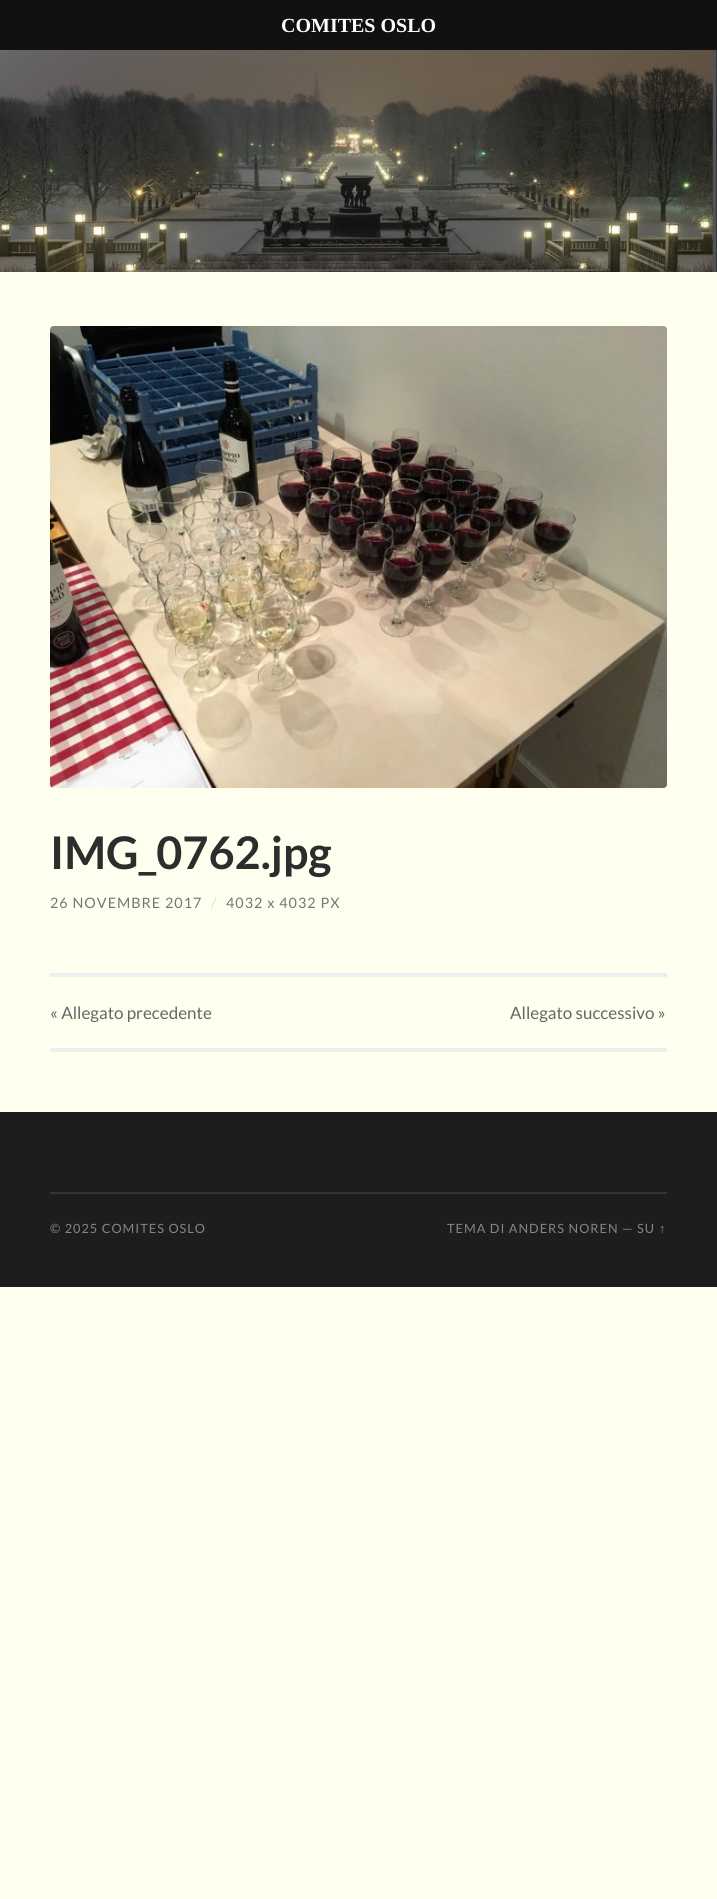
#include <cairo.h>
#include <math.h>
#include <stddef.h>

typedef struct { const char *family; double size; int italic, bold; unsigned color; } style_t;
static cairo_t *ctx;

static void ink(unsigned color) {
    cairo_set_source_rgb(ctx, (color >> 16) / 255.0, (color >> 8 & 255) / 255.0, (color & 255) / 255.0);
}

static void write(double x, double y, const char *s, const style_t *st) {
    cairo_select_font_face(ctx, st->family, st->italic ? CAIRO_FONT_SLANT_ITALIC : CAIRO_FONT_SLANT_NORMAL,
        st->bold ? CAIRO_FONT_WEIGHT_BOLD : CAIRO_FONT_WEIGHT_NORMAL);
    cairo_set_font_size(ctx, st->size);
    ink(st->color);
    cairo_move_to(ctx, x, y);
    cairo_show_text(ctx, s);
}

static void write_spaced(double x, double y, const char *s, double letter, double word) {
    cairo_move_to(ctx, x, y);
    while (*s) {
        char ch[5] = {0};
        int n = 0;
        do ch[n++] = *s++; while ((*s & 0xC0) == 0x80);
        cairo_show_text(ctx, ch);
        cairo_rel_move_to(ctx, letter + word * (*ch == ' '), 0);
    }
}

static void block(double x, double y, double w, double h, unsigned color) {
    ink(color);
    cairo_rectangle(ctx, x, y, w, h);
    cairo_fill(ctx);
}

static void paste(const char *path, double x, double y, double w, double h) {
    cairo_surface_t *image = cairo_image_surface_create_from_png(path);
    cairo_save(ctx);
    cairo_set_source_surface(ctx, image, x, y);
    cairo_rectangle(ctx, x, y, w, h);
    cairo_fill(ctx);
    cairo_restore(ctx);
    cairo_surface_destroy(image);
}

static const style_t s1 = {"Liberation Serif", 20, 0, 1, 0xffffff};
static const style_t s2 = {"Lato", 45, 0, 1, 0x2d2d2d};
static const style_t s3 = {"Lato", 17, 0, 0, 0x666666};

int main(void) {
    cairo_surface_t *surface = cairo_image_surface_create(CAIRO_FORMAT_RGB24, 717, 1899);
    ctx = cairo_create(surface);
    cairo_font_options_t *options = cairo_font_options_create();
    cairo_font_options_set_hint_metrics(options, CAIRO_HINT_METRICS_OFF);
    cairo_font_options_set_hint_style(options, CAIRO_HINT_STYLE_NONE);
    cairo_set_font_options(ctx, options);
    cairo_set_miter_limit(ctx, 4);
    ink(0xfffff0);
    cairo_paint(ctx);
    block(0, 0, 717, 50, 0x111111);
    write(281, 32, "COMITES OSLO", &s1);
    paste("pic1.png", 0, 50, 717, 222);
    paste("pic2.png", 50, 326, 617, 462);
    write(50, 869, "IMG_0762.jpg", &s2);
    cairo_select_font_face(ctx, "Lato", CAIRO_FONT_SLANT_NORMAL, CAIRO_FONT_WEIGHT_NORMAL);
    cairo_set_font_size(ctx, 14.4);
    ink(0x767676);
    write_spaced(50, 908, "26 NOVEMBRE 2017", 1, 0);
    ink(0xdddddd);
    write_spaced(211, 908, "/", 1, 0);
    ink(0x767676);
    write_spaced(226, 908, "4032 x 4032 PX", 1, 0);
    block(50, 973, 617, 4, 0xeeeeee);
    block(50, 1048, 617, 4, 0xeeeeee);
    write(50, 1019, "« Allegato precedente", &s3);
    write(510, 1019, "Allegato successivo »", &s3);
    block(0, 1112, 717, 175, 0x1d1d1d);
    block(50, 1192, 617, 2, 0x343434);
    cairo_set_font_size(ctx, 12.75);
    ink(0x858585);
    write_spaced(50, 1233, "© 2025 COMITES OSLO", 1, 0);
    write_spaced(447, 1233, "TEMA DI ANDERS NOREN — SU", 1, 0);
    cairo_select_font_face(ctx, "Liberation Sans", CAIRO_FONT_SLANT_NORMAL, CAIRO_FONT_WEIGHT_NORMAL);
    write_spaced(659, 1233, "↑", 1, 0);
    cairo_surface_write_to_png(surface, "screenshot.png");
    cairo_font_options_destroy(options);
    cairo_destroy(ctx);
    cairo_surface_destroy(surface);
    return 0;
}
